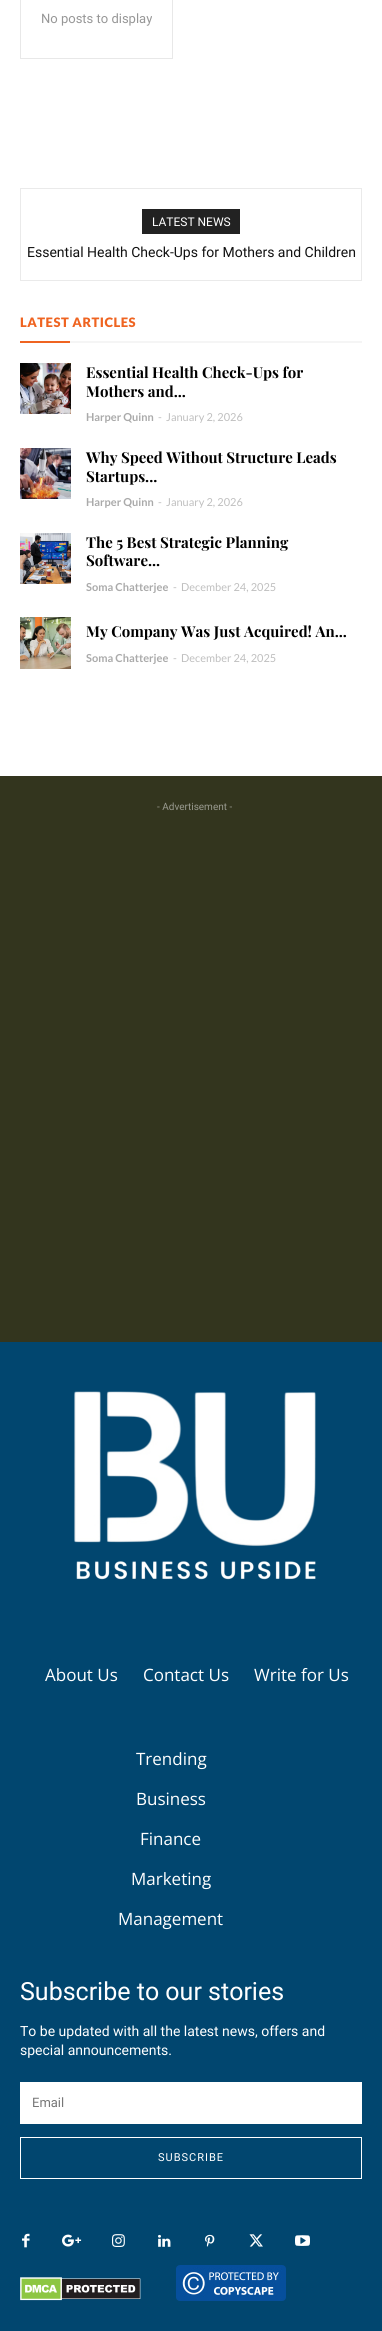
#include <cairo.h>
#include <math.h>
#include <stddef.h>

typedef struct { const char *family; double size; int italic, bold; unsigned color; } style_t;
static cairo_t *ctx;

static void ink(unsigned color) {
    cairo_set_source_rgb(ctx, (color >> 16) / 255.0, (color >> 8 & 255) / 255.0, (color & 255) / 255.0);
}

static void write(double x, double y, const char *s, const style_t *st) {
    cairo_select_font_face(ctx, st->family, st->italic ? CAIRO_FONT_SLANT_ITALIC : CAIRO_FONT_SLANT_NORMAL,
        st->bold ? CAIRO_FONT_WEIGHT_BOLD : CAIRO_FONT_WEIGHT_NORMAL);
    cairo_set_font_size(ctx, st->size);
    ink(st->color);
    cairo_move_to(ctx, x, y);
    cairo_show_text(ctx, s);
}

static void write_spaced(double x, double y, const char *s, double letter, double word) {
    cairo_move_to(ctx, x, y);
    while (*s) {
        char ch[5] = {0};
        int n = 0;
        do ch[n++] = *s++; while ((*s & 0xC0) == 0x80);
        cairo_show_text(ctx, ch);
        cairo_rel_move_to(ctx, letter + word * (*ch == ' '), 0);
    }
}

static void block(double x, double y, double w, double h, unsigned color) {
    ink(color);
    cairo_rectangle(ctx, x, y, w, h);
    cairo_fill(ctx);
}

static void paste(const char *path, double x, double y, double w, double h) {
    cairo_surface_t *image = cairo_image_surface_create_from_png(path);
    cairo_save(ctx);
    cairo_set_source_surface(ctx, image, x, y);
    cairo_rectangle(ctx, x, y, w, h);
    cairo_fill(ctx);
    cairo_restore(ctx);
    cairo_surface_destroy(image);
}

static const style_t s1 = {"Roboto", 13, 0, 0, 0x979797};
static const style_t s2 = {"Roboto", 12, 0, 0, 0xffffff};
static const style_t s3 = {"Roboto", 14, 0, 0, 0x111111};
static const style_t s4 = {"Playfair Display", 15, 0, 1, 0x000000};
static const style_t s5 = {"Lato", 11, 0, 1, 0xaaaaaa};
static const style_t s6 = {"Lato", 11, 0, 0, 0xbfbfbf};
static const style_t s7 = {"Roboto", 10, 0, 0, 0x999a8f};
static const style_t s8 = {"Open Sans", 17, 0, 0, 0xffffff};
static const style_t s9 = {"Roboto", 25, 0, 0, 0xffffff};
static const style_t s10 = {"Roboto", 14, 0, 0, 0xffffff};
static const style_t s11 = {"Roboto", 13, 0, 0, 0x777777};

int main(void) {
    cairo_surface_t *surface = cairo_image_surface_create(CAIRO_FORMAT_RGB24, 382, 2331);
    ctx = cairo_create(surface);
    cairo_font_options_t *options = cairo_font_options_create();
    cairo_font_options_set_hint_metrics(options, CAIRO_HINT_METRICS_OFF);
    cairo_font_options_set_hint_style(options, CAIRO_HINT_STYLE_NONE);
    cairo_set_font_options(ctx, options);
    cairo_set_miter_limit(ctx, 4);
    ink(0xffffff);
    cairo_paint(ctx);
    cairo_rectangle(ctx, 20.5, -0.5, 152, 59);
    ink(0xe8e8e8);
    cairo_set_line_width(ctx, 1);
    cairo_stroke(ctx);
    write(41, 23, "No posts to display", &s1);
    cairo_rectangle(ctx, 20.5, 188.5, 341, 92);
    ink(0xeaeaea);
    cairo_stroke(ctx);
    block(142, 209, 98, 25, 0x222222);
    write(152, 226, "LATEST NEWS", &s2);
    write(27, 257, "Essential Health Check-Ups for Mothers and Children", &s3);
    cairo_select_font_face(ctx, "Lato Black", CAIRO_FONT_SLANT_NORMAL, CAIRO_FONT_WEIGHT_NORMAL);
    cairo_set_font_size(ctx, 13);
    ink(0xef6421);
    write_spaced(20, 327, "LATEST ARTICLES", 0.5, 0);
    block(20, 341, 50, 2, 0xef6421);
    block(70, 341, 292, 2, 0xf5f5f5);
    paste("pic1.png", 20, 363, 51, 51);
    write(86, 378, "Essential Health Check-Ups for", &s4);
    write(86, 397, "Mothers and...", &s4);
    write(86, 421, "Harper Quinn", &s5);
    write(158, 421, "-", &s6);
    write(166, 421, "January 2, 2026", &s6);
    paste("pic2.png", 20, 448, 51, 51);
    write(86, 463, "Why Speed Without Structure Leads", &s4);
    write(86, 482, "Startups...", &s4);
    write(86, 506, "Harper Quinn", &s5);
    write(158, 506, "-", &s6);
    write(166, 506, "January 2, 2026", &s6);
    paste("pic3.png", 20, 533, 51, 51);
    write(86, 548, "The 5 Best Strategic Planning", &s4);
    write(86, 566, "Software...", &s4);
    write(86, 591, "Soma Chatterjee", &s5);
    write(173, 591, "-", &s6);
    write(181, 591, "December 24, 2025", &s6);
    paste("pic4.png", 20, 617, 51, 52);
    write(86, 637, "My Company Was Just Acquired! An...", &s4);
    write(86, 662, "Soma Chatterjee", &s5);
    write(173, 662, "-", &s6);
    write(181, 662, "December 24, 2025", &s6);
    block(0, 776, 382, 566, 0x33351e);
    write(157, 810, "- Advertisement -", &s7);
    block(0, 1342, 382, 989, 0x01466f);
    paste("pic5.png", 74, 1391, 242, 189);
    write(45, 1681, "About Us", &s8);
    write(143, 1681, "Contact Us", &s8);
    write(254, 1681, "Write for Us", &s8);
    write(136, 1765, "Trending", &s8);
    write(136, 1805, "Business", &s8);
    write(140, 1845, "Finance", &s8);
    write(131, 1885, "Marketing", &s8);
    write(118, 1925, "Management", &s8);
    write(20, 2000, "Subscribe to our stories", &s9);
    write(20, 2036, "To be updated with all the latest news, offers and", &s10);
    write(20, 2055, "special announcements.", &s10);
    block(20, 2082, 342, 42, 0xffffff);
    write(32, 2107, "Email", &s11);
    cairo_rectangle(ctx, 20.5, 2137.5, 341, 41);
    ink(0xffffff);
    cairo_stroke(ctx);
    cairo_set_font_size(ctx, 11);
    write_spaced(158, 2161, "SUBSCRIBE", 1, 0);
    paste("pic6.png", 22, 2233, 8, 15);
    paste("pic7.png", 62, 2234, 20, 13);
    paste("pic8.png", 112, 2234, 13, 13);
    paste("pic9.png", 158, 2234, 13, 13);
    paste("pic10.png", 205, 2234, 10, 13);
    paste("pic11.png", 249, 2234, 14, 13);
    paste("pic12.png", 295, 2235, 15, 11);
    paste("pic13.png", 20, 2277, 121, 24);
    paste("pic14.png", 176, 2265, 110, 36);
    cairo_surface_write_to_png(surface, "screenshot.png");
    cairo_font_options_destroy(options);
    cairo_destroy(ctx);
    cairo_surface_destroy(surface);
    return 0;
}
